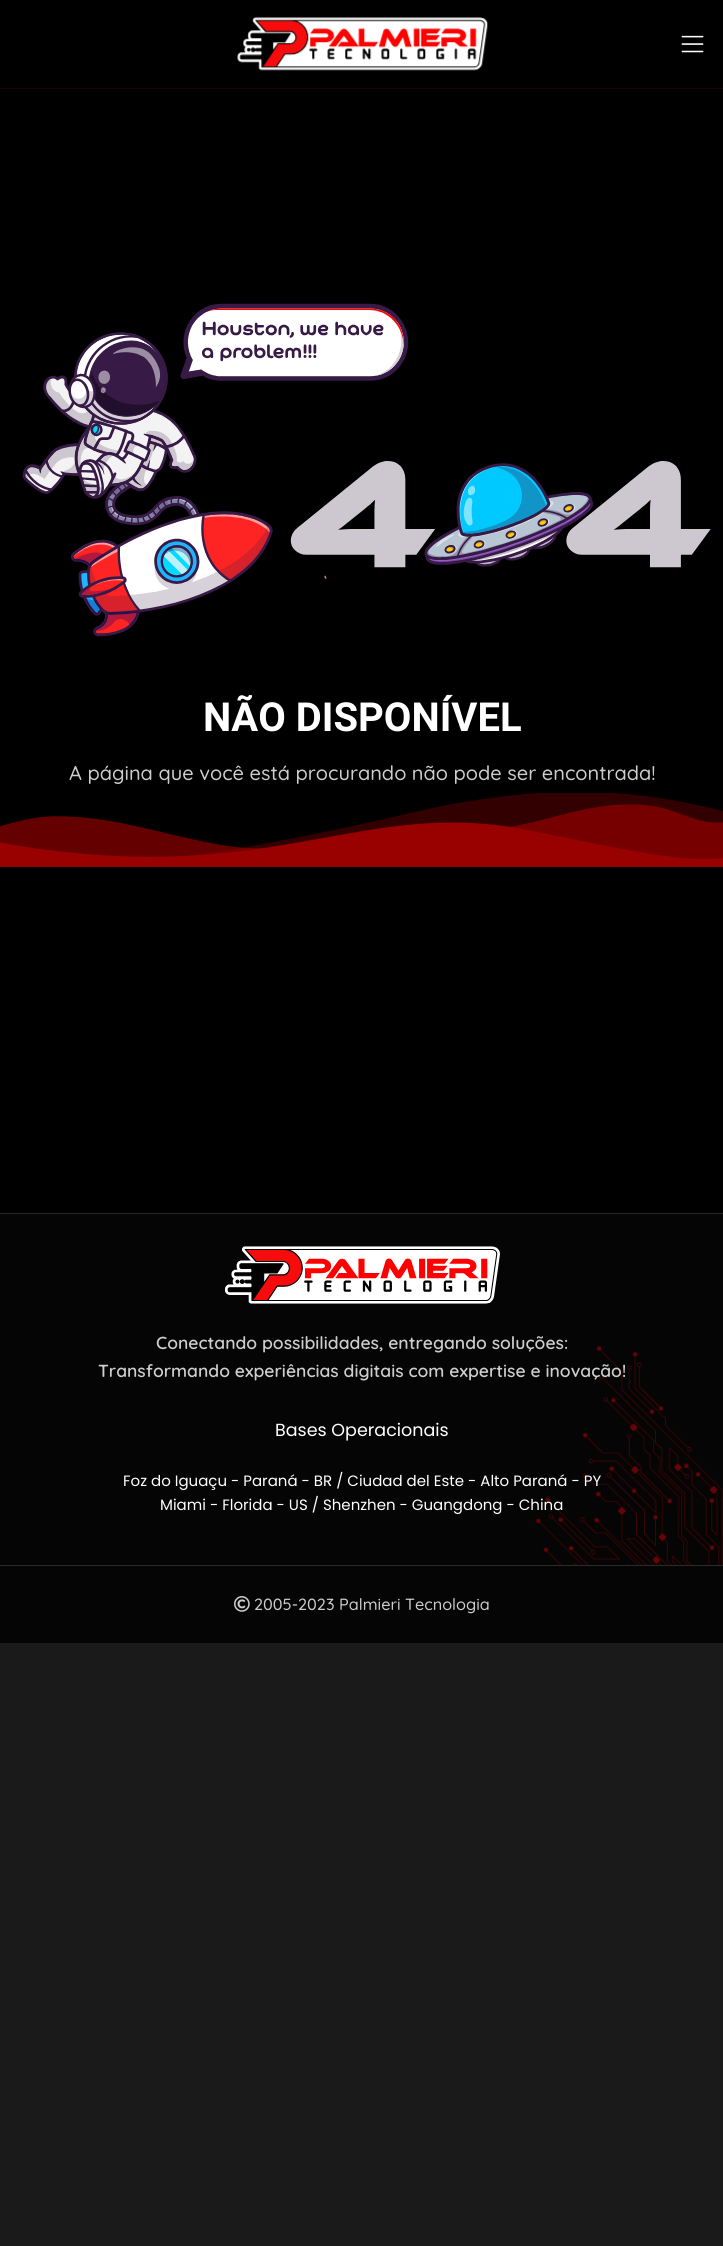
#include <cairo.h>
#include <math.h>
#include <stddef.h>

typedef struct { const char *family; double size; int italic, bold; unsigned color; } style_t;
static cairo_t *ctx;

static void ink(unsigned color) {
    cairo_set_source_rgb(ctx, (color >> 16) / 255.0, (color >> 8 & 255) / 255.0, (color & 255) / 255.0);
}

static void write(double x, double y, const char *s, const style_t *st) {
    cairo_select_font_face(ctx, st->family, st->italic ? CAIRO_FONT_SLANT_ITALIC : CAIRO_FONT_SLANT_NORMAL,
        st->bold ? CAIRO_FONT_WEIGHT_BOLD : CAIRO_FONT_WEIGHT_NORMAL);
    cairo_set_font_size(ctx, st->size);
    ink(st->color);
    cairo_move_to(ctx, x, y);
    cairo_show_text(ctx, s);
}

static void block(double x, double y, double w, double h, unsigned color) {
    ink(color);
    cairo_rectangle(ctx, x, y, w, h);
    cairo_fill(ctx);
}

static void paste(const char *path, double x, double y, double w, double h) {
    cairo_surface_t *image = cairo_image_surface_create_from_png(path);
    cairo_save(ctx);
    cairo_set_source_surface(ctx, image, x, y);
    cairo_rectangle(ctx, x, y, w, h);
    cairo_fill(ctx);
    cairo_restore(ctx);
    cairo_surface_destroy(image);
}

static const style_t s1 = {"Roboto", 40, 0, 1, 0xffffff};
static const style_t s2 = {"Quicksand Light", 20, 0, 0, 0xcdcdcd};
static const style_t s3 = {"Quicksand SemiBold", 17.5, 0, 0, 0xcdcdcd};
static const style_t s4 = {"Poppins", 17.5, 0, 0, 0xffffff};
static const style_t s5 = {"Poppins", 15, 0, 0, 0xffffff};
static const style_t s6 = {"Quicksand Light", 16.25, 0, 0, 0xcdcdcd};

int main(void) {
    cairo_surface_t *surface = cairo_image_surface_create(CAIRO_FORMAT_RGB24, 723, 2246);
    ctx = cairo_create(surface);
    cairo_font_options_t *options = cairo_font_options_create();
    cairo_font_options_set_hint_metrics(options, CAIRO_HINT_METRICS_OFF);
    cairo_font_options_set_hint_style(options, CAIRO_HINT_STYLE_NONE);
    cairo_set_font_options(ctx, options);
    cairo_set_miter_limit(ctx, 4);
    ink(0x1a1a1a);
    cairo_paint(ctx);
    block(0, 0, 723, 88, 0x000000);
    block(0, 88, 723, 1, 0x230105);
    paste("pic1.png", 237, 17, 251, 54);
    paste("pic2.png", 681, 35, 23, 18);
    block(0, 89, 723, 1124, 0x000000);
    paste("pic3.png", 22, 303, 689, 334);
    write(203, 731, "NÃO DISPONÍVEL", &s1);
    write(69, 780, "A página que você está procurando não pode ser encontrada!", &s2);
    paste("pic4.png", 0, 793, 723, 74);
    block(0, 1214, 723, 429, 0x050505);
    block(0, 1213, 723, 1, 0x272727);
    paste("pic5.png", 225, 1246, 275, 58);
    paste("pic6.png", 535, 1346, 188, 219);
    write(156, 1349, "Conectando possibilidades, entregando soluções:", &s3);
    write(98, 1377, "Transformando experiências digitais com expertise e inovação!", &s3);
    write(275, 1436, "Bases Operacionais", &s4);
    write(123, 1486, "Foz do Iguaçu - Paraná - BR / Ciudad del Este - Alto Paraná - PY", &s5);
    write(160, 1510, "Miami - Florida - US / Shenzhen - Guangdong - China", &s5);
    block(0, 1565, 723, 1, 0x2b2b2b);
    paste("pic7.png", 234, 1596, 16, 16);
    write(254, 1610, "2005-2023 Palmieri Tecnologia", &s6);
    cairo_surface_write_to_png(surface, "screenshot.png");
    cairo_font_options_destroy(options);
    cairo_destroy(ctx);
    cairo_surface_destroy(surface);
    return 0;
}
